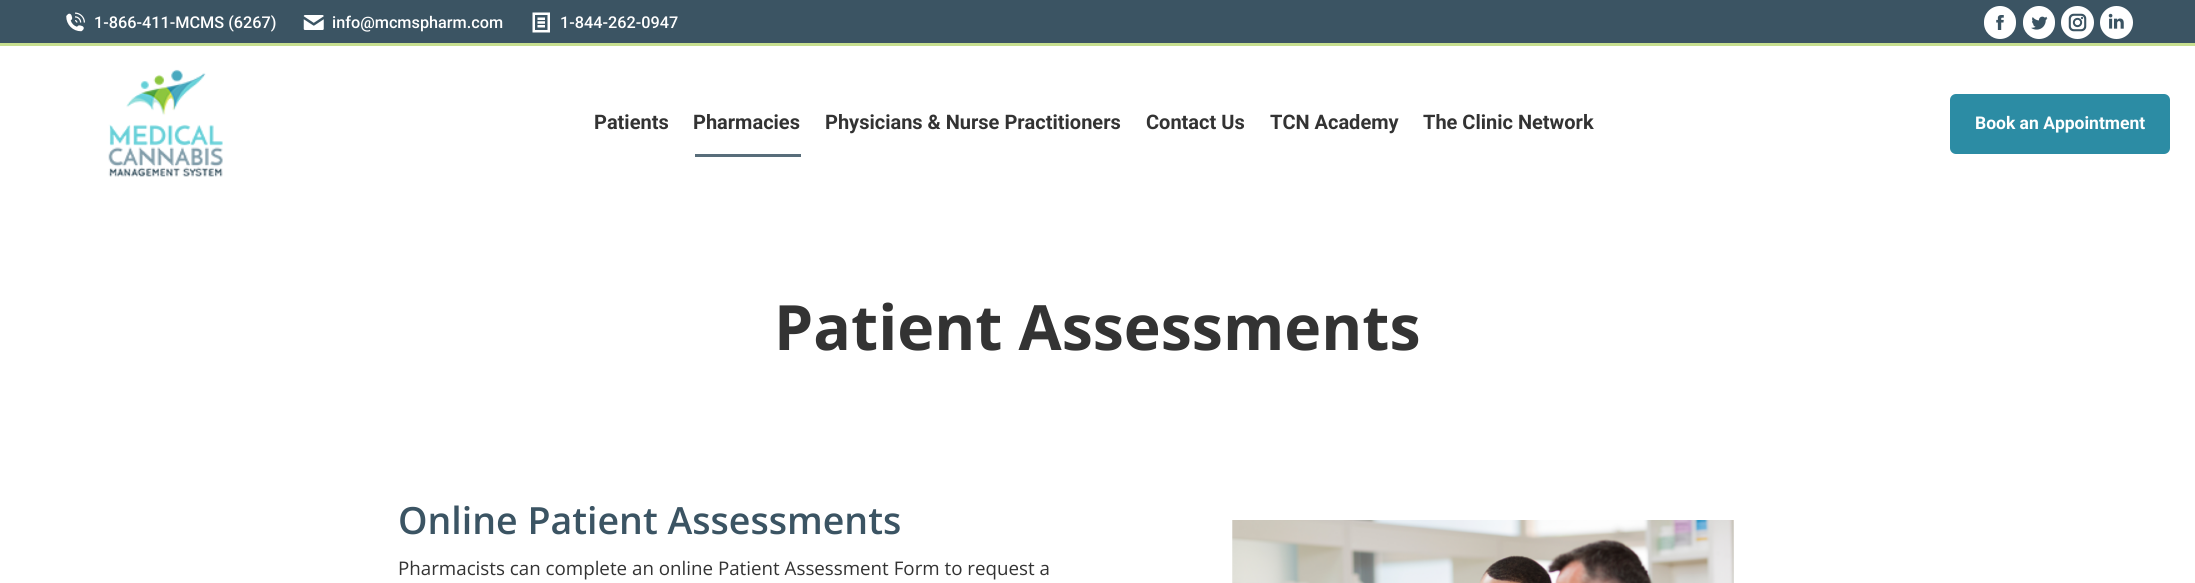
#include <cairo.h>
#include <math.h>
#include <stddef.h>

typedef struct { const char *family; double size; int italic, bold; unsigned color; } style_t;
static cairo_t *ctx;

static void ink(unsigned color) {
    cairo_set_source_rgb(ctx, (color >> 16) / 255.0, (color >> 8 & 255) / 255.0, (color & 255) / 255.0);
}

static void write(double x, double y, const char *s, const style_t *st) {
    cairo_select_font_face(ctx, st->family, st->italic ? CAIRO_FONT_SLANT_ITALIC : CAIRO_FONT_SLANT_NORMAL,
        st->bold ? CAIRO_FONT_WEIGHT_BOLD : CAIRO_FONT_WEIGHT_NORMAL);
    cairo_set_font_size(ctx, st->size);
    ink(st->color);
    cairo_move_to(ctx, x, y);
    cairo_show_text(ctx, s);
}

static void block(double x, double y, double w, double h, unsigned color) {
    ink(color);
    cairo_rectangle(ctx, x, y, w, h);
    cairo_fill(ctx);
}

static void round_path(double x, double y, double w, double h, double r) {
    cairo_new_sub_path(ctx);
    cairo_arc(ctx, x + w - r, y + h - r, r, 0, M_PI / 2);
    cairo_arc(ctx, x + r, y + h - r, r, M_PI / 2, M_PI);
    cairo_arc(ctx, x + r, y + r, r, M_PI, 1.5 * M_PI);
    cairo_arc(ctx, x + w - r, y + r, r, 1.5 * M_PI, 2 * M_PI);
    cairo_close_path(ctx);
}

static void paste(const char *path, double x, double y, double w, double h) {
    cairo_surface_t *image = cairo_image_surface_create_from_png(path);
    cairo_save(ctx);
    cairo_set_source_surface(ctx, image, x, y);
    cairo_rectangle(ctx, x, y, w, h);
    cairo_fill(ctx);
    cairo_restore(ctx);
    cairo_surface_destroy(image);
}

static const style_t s1 = {"Roboto Medium", 16.25, 0, 0, 0xffffff};
static const style_t s2 = {"Roboto", 20, 0, 1, 0x333333};
static const style_t s3 = {"Roboto", 17.5, 0, 1, 0xffffff};
static const style_t s4 = {"Open Sans", 62.5, 0, 1, 0x333333};
static const style_t s5 = {"Open Sans SemiBold", 37.5, 0, 0, 0x3b5463};
static const style_t s6 = {"Open Sans", 18.75, 0, 0, 0x333333};

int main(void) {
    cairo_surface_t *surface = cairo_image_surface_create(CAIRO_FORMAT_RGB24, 2195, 583);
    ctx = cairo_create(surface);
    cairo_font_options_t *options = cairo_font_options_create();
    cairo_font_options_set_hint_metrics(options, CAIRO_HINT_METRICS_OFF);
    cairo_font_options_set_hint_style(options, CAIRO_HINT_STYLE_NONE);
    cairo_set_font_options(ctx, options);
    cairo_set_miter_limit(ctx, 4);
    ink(0xffffff);
    cairo_paint(ctx);
    block(0, 0, 2195, 43, 0x3b5463);
    paste("pic1.png", 66, 12, 19, 20);
    write(94, 28, "1-866-411-MCMS (6267)", &s1);
    paste("pic2.png", 303, 15, 21, 15);
    write(332, 28, "info@mcmspharm.com", &s1);
    paste("pic3.png", 532, 12, 18, 21);
    write(560, 28, "1-844-262-0947", &s1);
    round_path(1984, 6, 32, 33, 16);
    cairo_fill(ctx);
    paste("pic4.png", 1996, 15, 8, 15);
    round_path(2023, 6, 32, 33, 16);
    cairo_fill(ctx);
    paste("pic5.png", 2031, 16, 17, 14);
    cairo_arc(ctx, 2077.5, 22.5, 16.5, 0, 2 * M_PI);
    cairo_fill(ctx);
    paste("pic6.png", 2068, 13, 19, 19);
    cairo_arc(ctx, 2116.5, 22.5, 16.5, 0, 2 * M_PI);
    cairo_fill(ctx);
    paste("pic7.png", 2108, 13, 16, 16);
    block(0, 43, 2195, 3, 0xc7df8f);
    paste("pic8.png", 108, 69, 115, 108);
    write(594, 129, "Patients", &s2);
    write(693, 129, "Pharmacies", &s2);
    block(695, 154, 106, 3, 0x586d7a);
    write(825, 129, "Physicians & Nurse Practitioners", &s2);
    write(1146, 129, "Contact Us", &s2);
    write(1270, 129, "TCN Academy", &s2);
    write(1423, 129, "The Clinic Network", &s2);
    ink(0x2c8ca4);
    round_path(1950, 94, 220, 60, 6);
    cairo_fill(ctx);
    write(1975, 129, "Book an Appointment", &s3);
    write(774, 350, "Patient Assessments", &s4);
    write(398, 534, "Online Patient Assessments", &s5);
    write(398, 575, "Pharmacists can complete an online Patient Assessment Form to request a", &s6);
    paste("pic9.png", 1232, 520, 502, 63);
    cairo_surface_write_to_png(surface, "screenshot.png");
    cairo_font_options_destroy(options);
    cairo_destroy(ctx);
    cairo_surface_destroy(surface);
    return 0;
}
